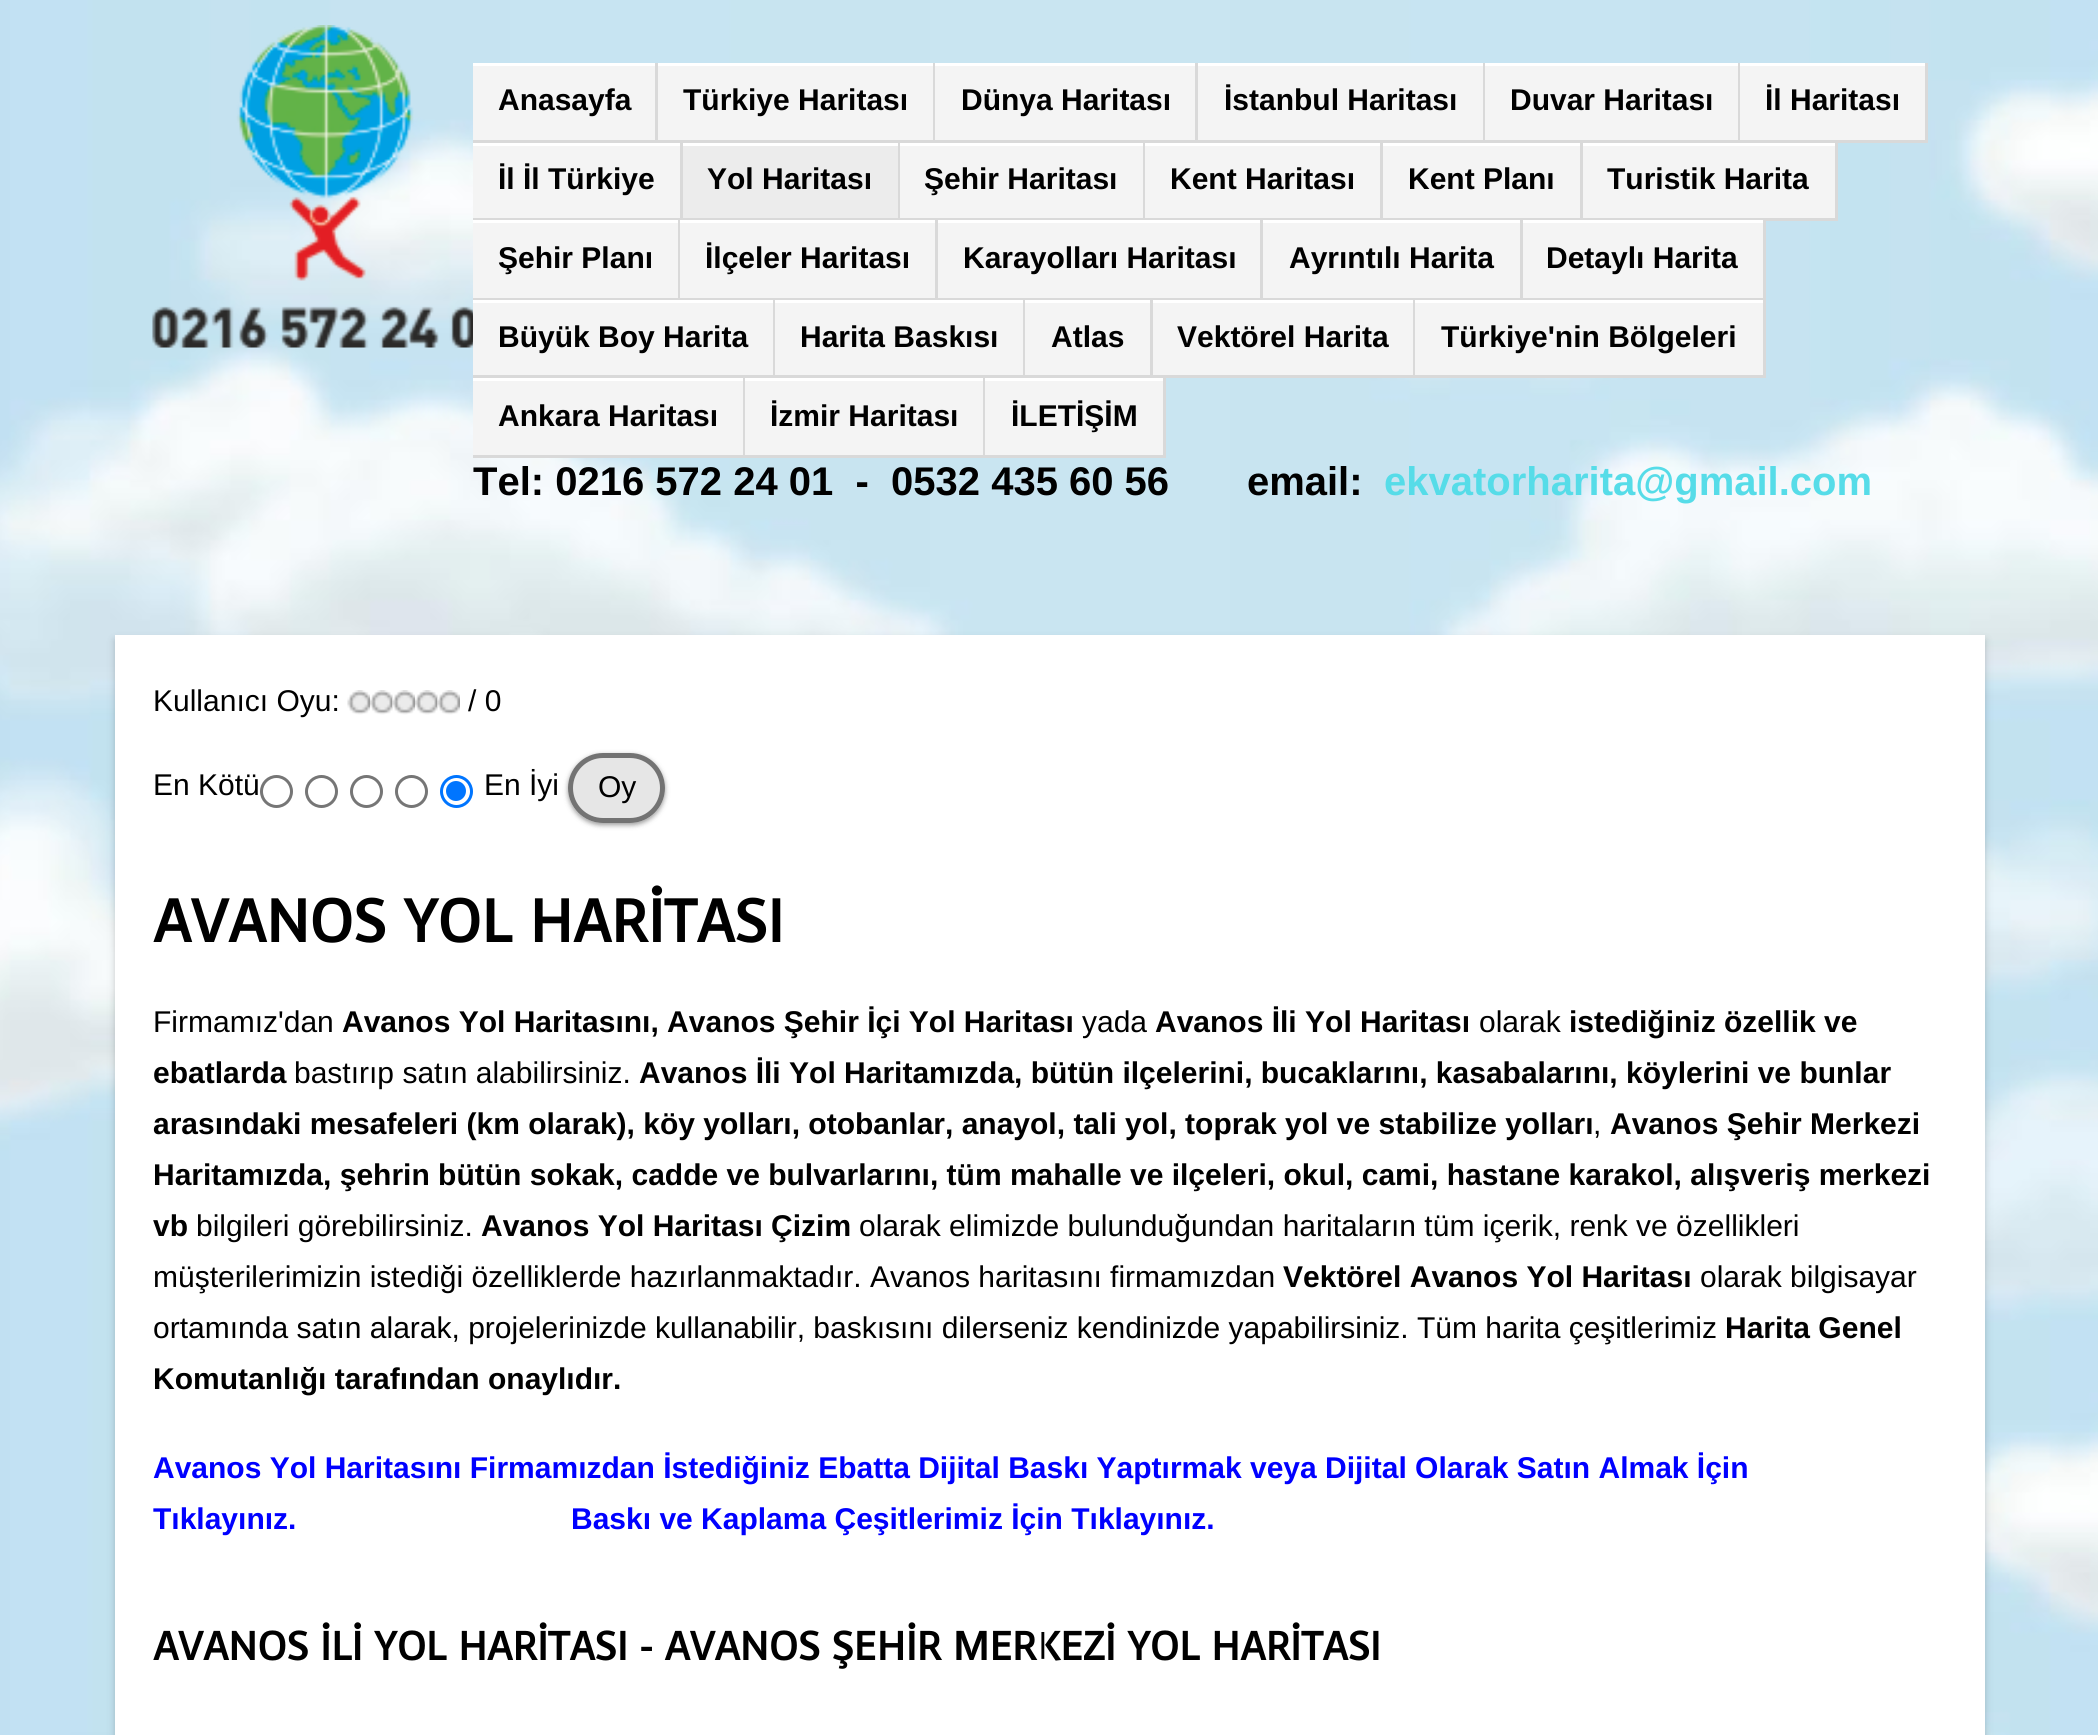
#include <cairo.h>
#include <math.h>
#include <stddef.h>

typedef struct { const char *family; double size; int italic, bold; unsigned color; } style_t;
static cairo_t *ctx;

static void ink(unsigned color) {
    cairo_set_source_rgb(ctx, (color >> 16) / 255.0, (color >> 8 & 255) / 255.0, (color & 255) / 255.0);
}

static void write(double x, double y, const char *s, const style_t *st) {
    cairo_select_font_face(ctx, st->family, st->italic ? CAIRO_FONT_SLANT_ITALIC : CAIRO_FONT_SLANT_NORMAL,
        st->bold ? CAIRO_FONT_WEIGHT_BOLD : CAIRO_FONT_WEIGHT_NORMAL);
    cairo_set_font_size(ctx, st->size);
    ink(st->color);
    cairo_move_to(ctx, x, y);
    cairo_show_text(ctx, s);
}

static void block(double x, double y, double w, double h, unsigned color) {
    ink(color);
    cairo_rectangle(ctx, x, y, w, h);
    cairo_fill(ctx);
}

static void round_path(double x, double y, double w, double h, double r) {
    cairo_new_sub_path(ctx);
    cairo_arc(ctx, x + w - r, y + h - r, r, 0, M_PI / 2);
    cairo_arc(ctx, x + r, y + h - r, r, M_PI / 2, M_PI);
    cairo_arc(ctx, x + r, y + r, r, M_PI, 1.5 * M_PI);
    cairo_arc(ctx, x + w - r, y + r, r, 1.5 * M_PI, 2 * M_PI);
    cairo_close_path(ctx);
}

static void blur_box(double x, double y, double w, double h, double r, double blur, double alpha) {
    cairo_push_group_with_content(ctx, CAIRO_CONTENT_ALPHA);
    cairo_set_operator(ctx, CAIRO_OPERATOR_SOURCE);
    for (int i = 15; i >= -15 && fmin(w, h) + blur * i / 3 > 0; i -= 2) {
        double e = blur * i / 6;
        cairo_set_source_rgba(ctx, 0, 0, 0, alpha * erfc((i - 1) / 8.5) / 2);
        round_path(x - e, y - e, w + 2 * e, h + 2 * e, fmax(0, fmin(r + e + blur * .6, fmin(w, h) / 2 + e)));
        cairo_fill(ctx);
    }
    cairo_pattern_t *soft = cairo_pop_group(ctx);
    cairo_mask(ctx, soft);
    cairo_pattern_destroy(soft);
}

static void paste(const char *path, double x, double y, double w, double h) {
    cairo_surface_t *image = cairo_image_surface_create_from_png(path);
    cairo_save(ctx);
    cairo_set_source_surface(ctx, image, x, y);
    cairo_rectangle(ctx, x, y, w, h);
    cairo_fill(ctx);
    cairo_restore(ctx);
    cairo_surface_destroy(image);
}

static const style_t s1 = {"Liberation Sans", 30, 0, 1, 0x000000};
static const style_t s2 = {"Liberation Sans", 40, 0, 1, 0x000000};
static const style_t s3 = {"Liberation Sans", 40, 0, 1, 0x56dce8};
static const style_t s4 = {"Liberation Sans", 30, 0, 0, 0x000000};
static const style_t s5 = {"Voces", 60, 0, 1, 0x000000};
static const style_t s6 = {"Liberation Sans", 30, 0, 1, 0x0000ff};
static const style_t s7 = {"Voces", 40, 0, 1, 0x000000};

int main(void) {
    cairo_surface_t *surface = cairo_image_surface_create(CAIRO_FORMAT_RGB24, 2098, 1735);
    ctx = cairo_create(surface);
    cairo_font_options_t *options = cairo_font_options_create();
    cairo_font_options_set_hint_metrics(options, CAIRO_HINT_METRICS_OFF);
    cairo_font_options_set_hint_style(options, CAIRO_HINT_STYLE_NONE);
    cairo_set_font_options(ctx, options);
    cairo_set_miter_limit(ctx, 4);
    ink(0xffffff);
    cairo_paint(ctx);
    paste("pic1.png", 0, 0, 2098, 1735);
    paste("pic2.png", 152, 25, 321, 323);
    block(473, 66, 182, 74, 0xf4f4f4);
    block(473, 63, 1455, 3, 0xffffff);
    block(655, 63, 3, 80, 0xd9d9d9);
    block(473, 140, 185, 3, 0xd9d9d9);
    write(498, 110, "Anasayfa", &s1);
    block(658, 66, 275, 74, 0xf4f4f4);
    block(933, 63, 2, 80, 0xd9d9d9);
    block(658, 140, 277, 3, 0xd9d9d9);
    write(683, 110, "Türkiye Haritası", &s1);
    block(935, 66, 260, 74, 0xf4f4f4);
    block(1195, 63, 3, 80, 0xd9d9d9);
    block(935, 140, 263, 3, 0xd9d9d9);
    write(961, 110, "Dünya Haritası", &s1);
    block(1198, 66, 285, 74, 0xf4f4f4);
    block(1483, 63, 2, 80, 0xd9d9d9);
    block(1198, 140, 287, 3, 0xd9d9d9);
    write(1224, 110, "İstanbul Haritası", &s1);
    block(1485, 66, 253, 74, 0xf4f4f4);
    block(1738, 63, 2, 80, 0xd9d9d9);
    block(1485, 140, 255, 3, 0xd9d9d9);
    write(1510, 110, "Duvar Haritası", &s1);
    block(1740, 66, 185, 74, 0xf4f4f4);
    block(1925, 63, 3, 80, 0xd9d9d9);
    block(1740, 140, 188, 3, 0xd9d9d9);
    write(1765, 110, "İl Haritası", &s1);
    block(473, 146, 207, 72, 0xf4f4f4);
    block(473, 143, 1365, 3, 0xffffff);
    block(680, 143, 3, 77, 0xd9d9d9);
    block(473, 218, 210, 2, 0xd9d9d9);
    write(498, 189, "İl İl Türkiye", &s1);
    block(683, 146, 215, 72, 0xececec);
    block(898, 143, 2, 77, 0xd9d9d9);
    block(683, 218, 217, 2, 0xd9d9d9);
    write(707, 189, "Yol Haritası", &s1);
    block(900, 146, 243, 72, 0xf4f4f4);
    block(1143, 143, 2, 77, 0xd9d9d9);
    block(900, 218, 245, 2, 0xd9d9d9);
    write(924, 189, "Şehir Haritası", &s1);
    block(1145, 146, 235, 72, 0xf4f4f4);
    block(1380, 143, 3, 77, 0xd9d9d9);
    block(1145, 218, 238, 2, 0xd9d9d9);
    write(1170, 189, "Kent Haritası", &s1);
    block(1383, 146, 197, 72, 0xf4f4f4);
    block(1580, 143, 3, 77, 0xd9d9d9);
    block(1383, 218, 200, 2, 0xd9d9d9);
    write(1408, 189, "Kent Planı", &s1);
    block(1583, 146, 252, 72, 0xf4f4f4);
    block(1835, 143, 3, 77, 0xd9d9d9);
    block(1583, 218, 255, 3, 0xd9d9d9);
    write(1607, 189, "Turistik Harita", &s1);
    block(473, 223, 205, 75, 0xf4f4f4);
    block(473, 220, 1292, 3, 0xffffff);
    block(678, 220, 2, 80, 0xd9d9d9);
    block(473, 298, 207, 2, 0xd9d9d9);
    write(498, 268, "Şehir Planı", &s1);
    block(680, 223, 255, 75, 0xf4f4f4);
    block(935, 220, 3, 80, 0xd9d9d9);
    block(680, 298, 258, 2, 0xd9d9d9);
    write(705, 268, "İlçeler Haritası", &s1);
    block(938, 223, 322, 75, 0xf4f4f4);
    block(1260, 220, 3, 80, 0xd9d9d9);
    block(938, 298, 325, 2, 0xd9d9d9);
    write(963, 268, "Karayolları Haritası", &s1);
    block(1263, 223, 257, 75, 0xf4f4f4);
    block(1520, 220, 3, 80, 0xd9d9d9);
    block(1263, 298, 260, 2, 0xd9d9d9);
    write(1289, 268, "Ayrıntılı Harita", &s1);
    block(1523, 223, 240, 75, 0xf4f4f4);
    block(1763, 220, 3, 80, 0xd9d9d9);
    block(1523, 298, 242, 2, 0xd9d9d9);
    write(1546, 268, "Detaylı Harita", &s1);
    block(473, 303, 300, 72, 0xf4f4f4);
    block(473, 300, 1292, 3, 0xffffff);
    block(773, 300, 2, 78, 0xd9d9d9);
    block(473, 375, 302, 3, 0xd9d9d9);
    write(498, 347, "Büyük Boy Harita", &s1);
    block(775, 303, 248, 72, 0xf4f4f4);
    block(1023, 300, 2, 78, 0xd9d9d9);
    block(775, 375, 250, 3, 0xd9d9d9);
    write(800, 347, "Harita Baskısı", &s1);
    block(1025, 303, 125, 72, 0xf4f4f4);
    block(1150, 300, 3, 78, 0xd9d9d9);
    block(1025, 375, 128, 3, 0xd9d9d9);
    write(1051, 347, "Atlas", &s1);
    block(1153, 303, 260, 72, 0xf4f4f4);
    block(1413, 300, 2, 78, 0xd9d9d9);
    block(1153, 375, 262, 3, 0xd9d9d9);
    write(1177, 347, "Vektörel Harita", &s1);
    block(1415, 303, 348, 72, 0xf4f4f4);
    block(1763, 300, 3, 78, 0xd9d9d9);
    block(1415, 375, 350, 3, 0xd9d9d9);
    write(1441, 347, "Türkiye'nin Bölgeleri", &s1);
    block(473, 381, 270, 74, 0xf4f4f4);
    block(473, 378, 692, 3, 0xffffff);
    block(743, 378, 2, 80, 0xd9d9d9);
    block(473, 455, 272, 3, 0xd9d9d9);
    write(498, 426, "Ankara Haritası", &s1);
    block(745, 381, 238, 74, 0xf4f4f4);
    block(983, 378, 2, 80, 0xd9d9d9);
    block(745, 455, 240, 3, 0xd9d9d9);
    write(770, 426, "İzmir Haritası", &s1);
    block(985, 381, 178, 74, 0xf4f4f4);
    block(1163, 378, 3, 80, 0xd9d9d9);
    block(985, 455, 180, 3, 0xd9d9d9);
    write(1011, 426, "İLETİŞİM", &s1);
    write(473, 495, "Tel: 0216 572 24 01  -  0532 435 60 56       email:", &s2);
    write(1384, 495, "ekvatorharita@gmail.com", &s3);
    ink(0x000000);
    blur_box(115, 640, 1870, 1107, 0, 4, 0.2);
    block(115, 635, 1870, 1100, 0xffffff);
    write(153, 711, "Kullanıcı Oyu:", &s4);
    paste("pic3.png", 347, 690, 23, 25);
    paste("pic4.png", 370, 690, 23, 25);
    paste("pic5.png", 392, 690, 23, 25);
    paste("pic6.png", 415, 690, 23, 25);
    paste("pic7.png", 437, 690, 23, 25);
    write(468, 711, "/ 0", &s4);
    write(153, 795, "En Kötü", &s4);
    cairo_new_path(ctx);
    cairo_arc(ctx, 276.5, 791.5, 15, 0, 2 * M_PI);
    ink(0x767676);
    cairo_set_line_width(ctx, 3);
    cairo_stroke(ctx);
    cairo_arc(ctx, 321.5, 791.5, 15, 0, 2 * M_PI);
    cairo_stroke(ctx);
    cairo_arc(ctx, 366.5, 791.5, 15, 0, 2 * M_PI);
    cairo_stroke(ctx);
    cairo_arc(ctx, 411.5, 791.5, 15, 0, 2 * M_PI);
    cairo_stroke(ctx);
    cairo_arc(ctx, 456.5, 791.5, 15, 0, 2 * M_PI);
    ink(0x0075ff);
    cairo_stroke(ctx);
    cairo_arc(ctx, 456, 791, 10, 0, 2 * M_PI);
    cairo_fill(ctx);
    write(484, 795, "En İyi", &s4);
    cairo_save(ctx);
    cairo_set_fill_rule(ctx, CAIRO_FILL_RULE_EVEN_ODD);
    cairo_new_path(ctx);
    cairo_move_to(ctx, 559, 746);
    cairo_line_to(ctx, 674, 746);
    cairo_line_to(ctx, 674, 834);
    cairo_line_to(ctx, 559, 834);
    cairo_close_path(ctx);
    cairo_move_to(ctx, 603, 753);
    cairo_line_to(ctx, 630, 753);
    cairo_curve_to(ctx, 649.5, 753, 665, 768.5, 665, 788);
    cairo_curve_to(ctx, 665, 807.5, 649.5, 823, 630, 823);
    cairo_line_to(ctx, 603, 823);
    cairo_curve_to(ctx, 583.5, 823, 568, 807.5, 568, 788);
    cairo_curve_to(ctx, 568, 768.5, 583.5, 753, 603, 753);
    cairo_close_path(ctx);
    cairo_clip(ctx);
    ink(0x000000);
    blur_box(568, 755, 97, 70, 35, 2.5, 0.4);
    cairo_restore(ctx);
    cairo_set_source_rgba(ctx, 0, 0, 0, 0.1);
    round_path(568, 753, 97, 70, 35);
    cairo_fill(ctx);
    round_path(570.5, 755.5, 92, 65, 32.5);
    cairo_set_source_rgba(ctx, 0, 0, 0, 0.5);
    cairo_set_line_width(ctx, 5);
    cairo_stroke(ctx);
    write(598, 797, "Oy", &s4);
    write(153, 942, "AVANOS YOL HARİTASI", &s5);
    write(153, 1032, "Firmamız'dan", &s4);
    write(342, 1032, "Avanos Yol Haritasını, Avanos Şehir İçi Yol Haritası", &s1);
    write(1082, 1032, "yada", &s4);
    write(1155, 1032, "Avanos İli Yol Haritası", &s1);
    write(1479, 1032, "olarak", &s4);
    write(1569, 1032, "istediğiniz özellik ve", &s1);
    write(153, 1083, "ebatlarda", &s1);
    write(294, 1083, "bastırıp satın alabilirsiniz.", &s4);
    write(639, 1083, "Avanos İli Yol Haritamızda, bütün ilçelerini, bucaklarını, kasabalarını, köylerini ve bunlar", &s1);
    write(153, 1134, "arasındaki mesafeleri (km olarak), köy yolları, otobanlar, anayol, tali yol, toprak yol ve stabilize yolları", &s1);
    write(1593, 1134, ",", &s4);
    write(1610, 1134, "Avanos Şehir Merkezi", &s1);
    write(153, 1185, "Haritamızda, şehrin bütün sokak, cadde ve bulvarlarını, tüm mahalle ve ilçeleri, okul, cami, hastane karakol, alışveriş merkezi", &s1);
    write(153, 1236, "vb", &s1);
    write(196, 1236, "bilgileri görebilirsiniz.", &s4);
    write(481, 1236, "Avanos Yol Haritası Çizim", &s1);
    write(859, 1236, "olarak elimizde bulunduğundan haritaların tüm içerik, renk ve özellikleri", &s4);
    write(153, 1287, "müşterilerimizin istediği özelliklerde hazırlanmaktadır. Avanos haritasını firmamızdan", &s4);
    write(1283, 1287, "Vektörel Avanos Yol Haritası", &s1);
    write(1700, 1287, "olarak bilgisayar", &s4);
    write(153, 1338, "ortamında satın alarak, projelerinizde kullanabilir, baskısını dilerseniz kendinizde yapabilirsiniz. Tüm harita çeşitlerimiz", &s4);
    write(1725, 1338, "Harita Genel", &s1);
    write(153, 1389, "Komutanlığı tarafından onaylıdır.", &s1);
    write(153, 1478, "Avanos Yol Haritasını Firmamızdan İstediğiniz Ebatta Dijital Baskı Yaptırmak veya Dijital Olarak Satın Almak İçin", &s6);
    write(153, 1529, "Tıklayınız.", &s6);
    write(571, 1529, "Baskı ve Kaplama Çeşitlerimiz İçin Tıklayınız.", &s6);
    write(153, 1660, "AVANOS İLİ YOL HARİTASI - AVANOS ŞEHİR MERKEZİ YOL HARİTASI", &s7);
    cairo_surface_write_to_png(surface, "screenshot.png");
    cairo_font_options_destroy(options);
    cairo_destroy(ctx);
    cairo_surface_destroy(surface);
    return 0;
}
